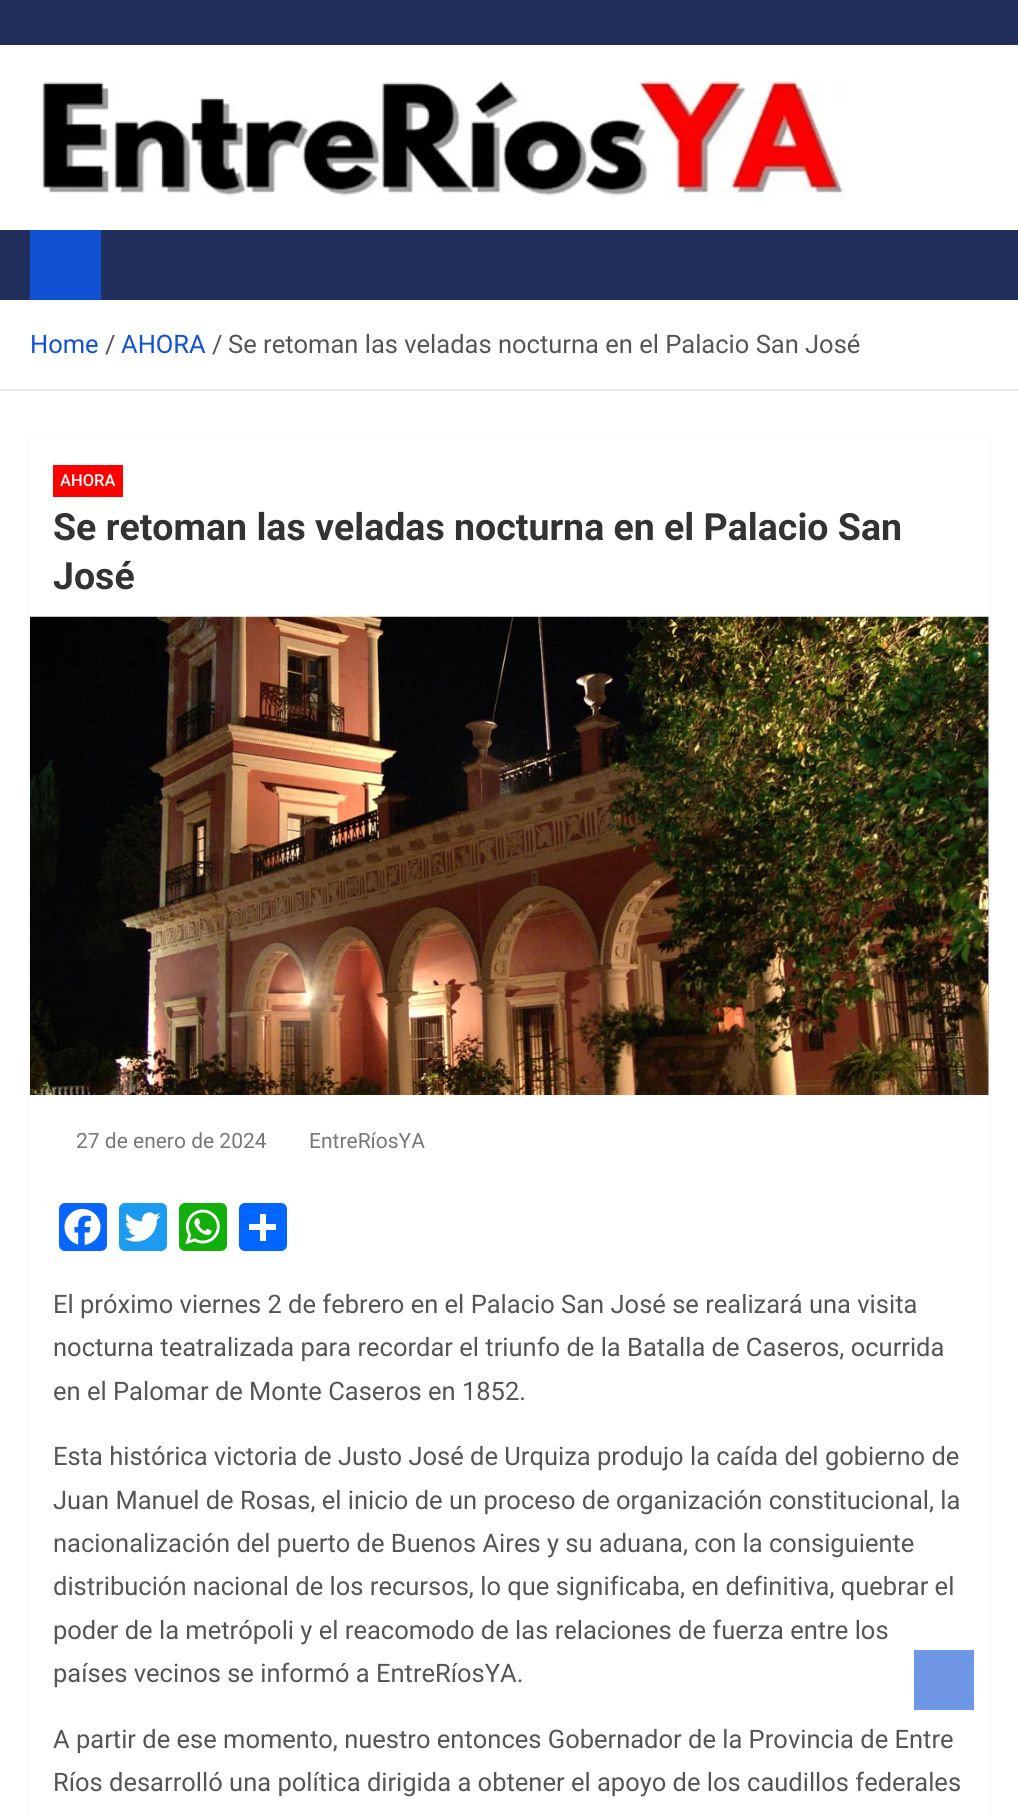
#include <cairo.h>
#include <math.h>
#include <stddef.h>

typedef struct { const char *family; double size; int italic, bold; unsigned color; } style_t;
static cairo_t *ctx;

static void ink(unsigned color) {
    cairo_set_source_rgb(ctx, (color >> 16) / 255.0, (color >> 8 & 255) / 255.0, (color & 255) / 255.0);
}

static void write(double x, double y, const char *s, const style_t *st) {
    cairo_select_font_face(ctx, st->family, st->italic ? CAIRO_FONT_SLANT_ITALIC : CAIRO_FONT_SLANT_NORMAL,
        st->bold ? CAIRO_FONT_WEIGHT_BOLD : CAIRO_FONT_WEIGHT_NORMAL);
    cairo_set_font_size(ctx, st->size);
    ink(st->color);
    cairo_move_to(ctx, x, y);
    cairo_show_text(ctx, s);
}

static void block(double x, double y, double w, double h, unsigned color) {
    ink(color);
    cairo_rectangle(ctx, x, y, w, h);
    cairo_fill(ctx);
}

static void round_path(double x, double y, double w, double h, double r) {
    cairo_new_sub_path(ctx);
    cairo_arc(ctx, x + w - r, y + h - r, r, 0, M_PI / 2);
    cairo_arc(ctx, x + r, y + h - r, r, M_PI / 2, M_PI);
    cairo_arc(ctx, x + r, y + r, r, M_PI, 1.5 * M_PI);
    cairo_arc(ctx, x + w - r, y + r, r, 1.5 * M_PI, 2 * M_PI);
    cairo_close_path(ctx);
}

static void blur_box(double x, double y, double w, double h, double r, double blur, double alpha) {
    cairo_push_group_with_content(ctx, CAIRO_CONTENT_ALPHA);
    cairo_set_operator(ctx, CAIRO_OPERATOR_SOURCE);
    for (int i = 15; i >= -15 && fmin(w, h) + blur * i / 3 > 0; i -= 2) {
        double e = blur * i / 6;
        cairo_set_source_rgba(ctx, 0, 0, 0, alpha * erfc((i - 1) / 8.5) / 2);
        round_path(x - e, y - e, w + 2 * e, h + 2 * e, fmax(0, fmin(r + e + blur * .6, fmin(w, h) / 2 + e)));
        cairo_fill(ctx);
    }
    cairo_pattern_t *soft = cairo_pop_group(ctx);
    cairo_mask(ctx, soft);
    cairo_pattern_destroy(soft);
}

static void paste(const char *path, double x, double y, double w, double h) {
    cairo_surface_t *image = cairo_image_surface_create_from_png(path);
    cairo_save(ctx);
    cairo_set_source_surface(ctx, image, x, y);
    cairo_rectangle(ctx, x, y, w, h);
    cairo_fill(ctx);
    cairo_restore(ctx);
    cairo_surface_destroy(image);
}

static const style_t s1 = {"Roboto", 25.5, 0, 0, 0x1151d3};
static const style_t s2 = {"Roboto", 25.5, 0, 0, 0x555555};
static const style_t s3 = {"Roboto Medium", 16.5, 0, 0, 0xffffff};
static const style_t s4 = {"Roboto", 37.5, 0, 1, 0x333333};
static const style_t s5 = {"Roboto", 21, 0, 0, 0x777777};

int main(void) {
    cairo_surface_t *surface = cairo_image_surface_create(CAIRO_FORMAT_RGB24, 1018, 1815);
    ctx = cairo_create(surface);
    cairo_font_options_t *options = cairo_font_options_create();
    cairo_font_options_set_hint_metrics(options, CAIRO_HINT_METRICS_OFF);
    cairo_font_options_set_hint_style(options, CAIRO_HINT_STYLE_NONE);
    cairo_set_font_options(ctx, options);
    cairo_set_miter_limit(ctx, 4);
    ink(0xffffff);
    cairo_paint(ctx);
    block(0, 0, 1018, 45, 0x202f5b);
    paste("pic1.png", 42, 79, 804, 121);
    block(0, 230, 1018, 70, 0x202f5b);
    block(30, 230, 71, 70, 0x1151d3);
    block(0, 389, 1018, 2, 0xe6e6e6);
    write(30, 353, "Home", &s1);
    write(105, 353, "/", &s2);
    write(121, 353, "AHORA", &s1);
    write(212, 353, "/", &s2);
    write(228, 353, "Se retoman las veladas nocturna en el Palacio San José", &s2);
    ink(0x000000);
    blur_box(30, 437, 959, 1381, 0, 1, 0.1);
    block(30, 436, 959, 1379, 0xffffff);
    block(53, 465, 70, 32, 0xff0000);
    write(60, 486, "AHORA", &s3);
    write(53, 540, "Se retoman las veladas nocturna en el Palacio San", &s4);
    write(53, 589, "José", &s4);
    block(988, 617, 1, 478, 0xbcbcbc);
    paste("pic2.png", 30, 616, 959, 479);
    write(76, 1148, "27 de enero de 2024", &s5);
    write(309, 1148, "EntreRíosYA", &s5);
    ink(0x0866ff);
    round_path(59, 1203, 48, 48, 6);
    cairo_fill(ctx);
    paste("pic3.png", 64, 1209, 37, 36);
    ink(0x1d9bf0);
    round_path(119, 1203, 48, 48, 6);
    cairo_fill(ctx);
    paste("pic4.png", 124, 1212, 37, 30);
    ink(0x12af0a);
    round_path(179, 1203, 48, 48, 6);
    cairo_fill(ctx);
    paste("pic5.png", 185, 1209, 35, 36);
    ink(0x0166ff);
    round_path(239, 1203, 48, 48, 6);
    cairo_fill(ctx);
    block(260, 1214, 6, 27, 0xffffff);
    block(249, 1224, 27, 6, 0xffffff);
    write(53, 1313, "El próximo viernes 2 de febrero en el Palacio San José se realizará una visita", &s2);
    write(53, 1356, "nocturna teatralizada para recordar el triunfo de la Batalla de Caseros, ocurrida", &s2);
    write(53, 1400, "en el Palomar de Monte Caseros en 1852.", &s2);
    write(53, 1465, "Esta histórica victoria de Justo José de Urquiza produjo la caída del gobierno de", &s2);
    write(53, 1509, "Juan Manuel de Rosas, el inicio de un proceso de organización constitucional, la", &s2);
    write(53, 1552, "nacionalización del puerto de Buenos Aires y su aduana, con la consiguiente", &s2);
    write(53, 1595, "distribución nacional de los recursos, lo que significaba, en definitiva, quebrar el", &s2);
    write(53, 1639, "poder de la metrópoli y el reacomodo de las relaciones de fuerza entre los", &s2);
    write(53, 1682, "países vecinos se informó a EntreRíosYA.", &s2);
    write(53, 1748, "A partir de ese momento, nuestro entonces Gobernador de la Provincia de Entre", &s2);
    write(53, 1791, "Ríos desarrolló una política dirigida a obtener el apoyo de los caudillos federales", &s2);
    block(914, 1650, 60, 60, 0x7097e5);
    cairo_surface_write_to_png(surface, "screenshot.png");
    cairo_font_options_destroy(options);
    cairo_destroy(ctx);
    cairo_surface_destroy(surface);
    return 0;
}
